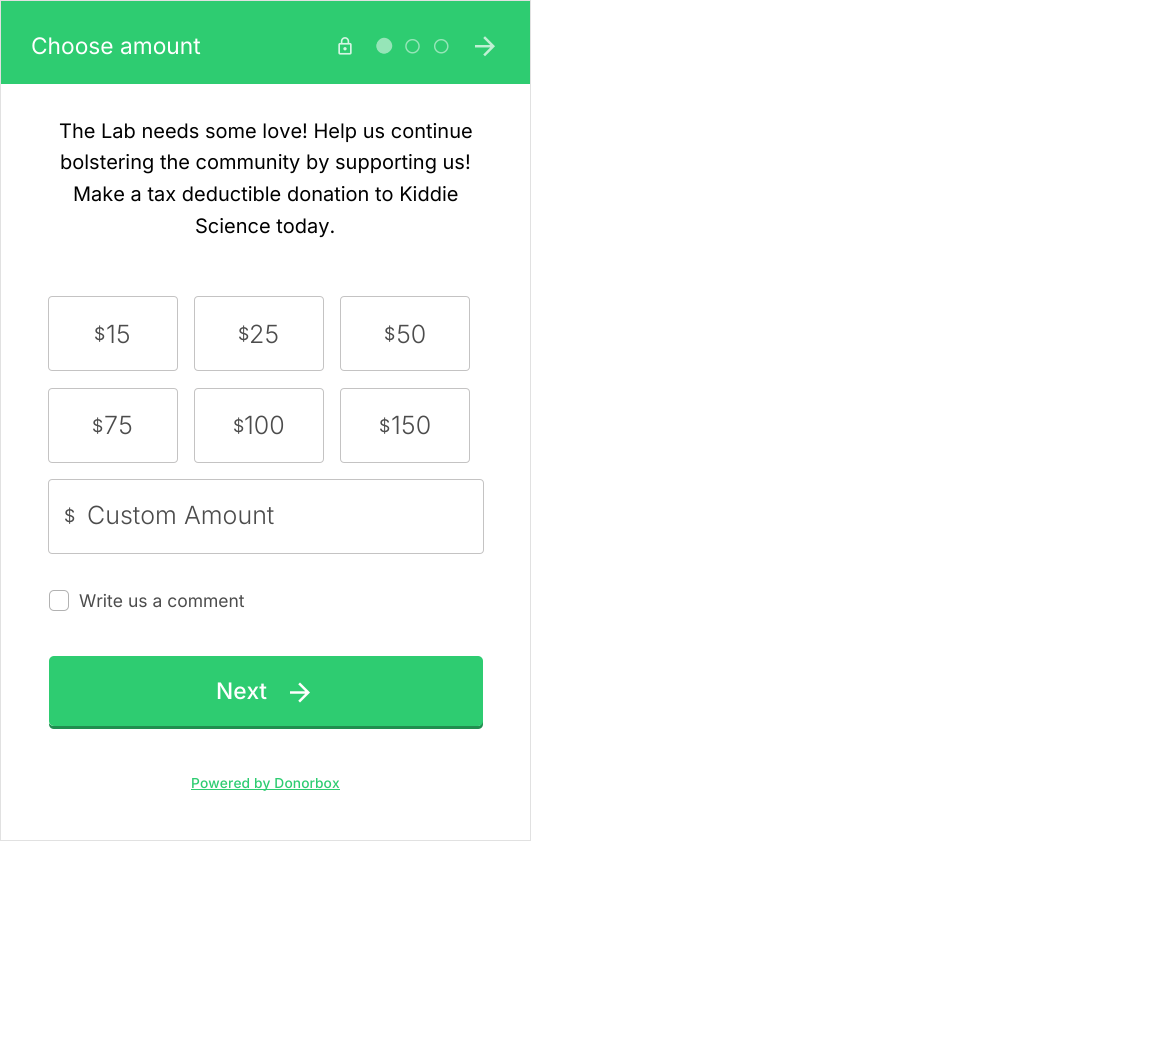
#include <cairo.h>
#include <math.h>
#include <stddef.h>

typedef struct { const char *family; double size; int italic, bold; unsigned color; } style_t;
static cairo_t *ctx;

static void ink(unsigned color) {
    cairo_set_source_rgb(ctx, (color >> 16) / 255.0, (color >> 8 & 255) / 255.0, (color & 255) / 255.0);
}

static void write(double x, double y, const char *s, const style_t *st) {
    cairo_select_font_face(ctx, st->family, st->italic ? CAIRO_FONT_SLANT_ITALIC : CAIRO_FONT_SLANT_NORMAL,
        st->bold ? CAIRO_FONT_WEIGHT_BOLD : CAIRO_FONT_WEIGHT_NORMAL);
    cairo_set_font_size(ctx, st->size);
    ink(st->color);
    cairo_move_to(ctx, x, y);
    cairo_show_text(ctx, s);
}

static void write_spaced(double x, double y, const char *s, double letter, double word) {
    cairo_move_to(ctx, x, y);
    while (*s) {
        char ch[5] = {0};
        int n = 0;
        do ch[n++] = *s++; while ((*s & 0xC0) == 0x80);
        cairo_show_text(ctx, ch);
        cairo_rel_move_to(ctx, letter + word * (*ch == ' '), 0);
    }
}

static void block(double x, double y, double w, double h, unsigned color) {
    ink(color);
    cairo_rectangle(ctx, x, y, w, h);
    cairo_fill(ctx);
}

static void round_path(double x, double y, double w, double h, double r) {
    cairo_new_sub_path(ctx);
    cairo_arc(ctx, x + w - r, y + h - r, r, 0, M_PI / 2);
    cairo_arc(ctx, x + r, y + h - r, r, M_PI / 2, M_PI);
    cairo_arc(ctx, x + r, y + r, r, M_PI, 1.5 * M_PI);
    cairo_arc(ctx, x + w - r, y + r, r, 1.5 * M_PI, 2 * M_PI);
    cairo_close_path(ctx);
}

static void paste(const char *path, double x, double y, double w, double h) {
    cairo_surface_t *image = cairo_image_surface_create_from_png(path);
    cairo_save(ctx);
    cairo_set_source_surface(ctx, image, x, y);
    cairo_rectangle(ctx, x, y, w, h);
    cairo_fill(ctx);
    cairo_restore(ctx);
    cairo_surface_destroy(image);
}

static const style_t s1 = {"Inter", 22.75, 0, 0, 0xffffff};
static const style_t s2 = {"Inter", 20, 0, 0, 0x000000};
static const style_t s3 = {"Inter", 17.5, 0, 0, 0x4c4c4c};
static const style_t s4 = {"Inter Light", 25, 0, 0, 0x4c4c4c};
static const style_t s5 = {"Inter Medium", 22.75, 0, 0, 0xffffff};

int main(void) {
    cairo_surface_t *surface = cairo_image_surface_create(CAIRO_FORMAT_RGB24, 1172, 1054);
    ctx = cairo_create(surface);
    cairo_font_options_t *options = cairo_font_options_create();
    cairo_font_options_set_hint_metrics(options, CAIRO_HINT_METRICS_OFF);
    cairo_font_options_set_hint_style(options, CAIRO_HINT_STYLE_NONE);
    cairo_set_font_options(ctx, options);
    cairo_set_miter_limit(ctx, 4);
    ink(0xffffff);
    cairo_paint(ctx);
    cairo_rectangle(ctx, 0.5, 0.5, 530, 840);
    ink(0xe1e1e1);
    cairo_set_line_width(ctx, 1);
    cairo_stroke(ctx);
    block(1, 1, 529, 83, 0x2ecc71);
    write(31, 54, "Choose amount", &s1);
    paste("pic1.png", 338, 37, 14, 18);
    paste("pic2.png", 376, 39, 15, 15);
    ink(0x96e5b8);
    cairo_new_path(ctx);
    cairo_move_to(ctx, 379, 40);
    cairo_curve_to(ctx, 386, 33, 397, 44, 390, 51);
    cairo_curve_to(ctx, 382.5, 58.5, 371.5, 47.5, 379, 40);
    cairo_close_path(ctx);
    cairo_fill(ctx);
    paste("pic3.png", 405, 39, 15, 15);
    paste("pic4.png", 434, 39, 15, 15);
    paste("pic5.png", 475, 36, 20, 21);
    write(59, 138, "The Lab needs some love! Help us continue", &s2);
    write(60, 169, "bolstering the community by supporting us!", &s2);
    write(73, 201, "Make a tax deductible donation to Kiddie", &s2);
    write(195, 233, "Science today.", &s2);
    round_path(48.5, 296.5, 129, 74, 3.5);
    ink(0xc4c3c3);
    cairo_stroke(ctx);
    write(94, 340, "$", &s3);
    write(106, 343, "15", &s4);
    round_path(194.5, 296.5, 129, 74, 3.5);
    ink(0xc4c3c3);
    cairo_stroke(ctx);
    write(238, 340, "$", &s3);
    write(249, 343, "25", &s4);
    round_path(340.5, 296.5, 129, 74, 3.5);
    ink(0xc4c3c3);
    cairo_stroke(ctx);
    write(384, 340, "$", &s3);
    write(396, 343, "50", &s4);
    round_path(48.5, 388.5, 129, 74, 3.5);
    ink(0xc4c3c3);
    cairo_stroke(ctx);
    write(92, 432, "$", &s3);
    write(104, 434, "75", &s4);
    round_path(194.5, 388.5, 129, 74, 3.5);
    ink(0xc4c3c3);
    cairo_stroke(ctx);
    write(233, 432, "$", &s3);
    write(244, 434, "100", &s4);
    round_path(340.5, 388.5, 129, 74, 3.5);
    ink(0xc4c3c3);
    cairo_stroke(ctx);
    write(379, 432, "$", &s3);
    write(391, 434, "150", &s4);
    round_path(48.5, 479.5, 435, 74, 3.5);
    ink(0xc4c3c3);
    cairo_stroke(ctx);
    write(64, 522, "$", &s3);
    write(87, 524, "Custom Amount", &s4);
    round_path(49.5, 590.5, 19, 20, 4.5);
    ink(0xb2b2b2);
    cairo_stroke(ctx);
    write(79, 607, "Write us a comment", &s3);
    ink(0x208e4f);
    cairo_new_path(ctx);
    cairo_move_to(ctx, 49, 723);
    cairo_line_to(ctx, 49, 724);
    cairo_curve_to(ctx, 49, 727, 51, 729, 54, 729);
    cairo_line_to(ctx, 478, 729);
    cairo_curve_to(ctx, 481, 729, 483, 727, 483, 724);
    cairo_line_to(ctx, 483, 664);
    cairo_line_to(ctx, 482, 662);
    cairo_line_to(ctx, 482, 721);
    cairo_curve_to(ctx, 482, 724, 480, 726, 478, 726);
    cairo_line_to(ctx, 54, 726);
    cairo_curve_to(ctx, 52, 726, 50, 725, 49, 723);
    cairo_close_path(ctx);
    cairo_fill(ctx);
    ink(0x2ecc71);
    round_path(49, 656, 434, 70, 5);
    cairo_fill(ctx);
    write(216, 699, "Next", &s5);
    paste("pic6.png", 290, 682, 20, 21);
    block(191, 789, 149, 1, 0x2ecc71);
    cairo_set_font_size(ctx, 13.75);
    write_spaced(191, 788, "Powered by Donorbox", 0.1, 0);
    cairo_surface_write_to_png(surface, "screenshot.png");
    cairo_font_options_destroy(options);
    cairo_destroy(ctx);
    cairo_surface_destroy(surface);
    return 0;
}
